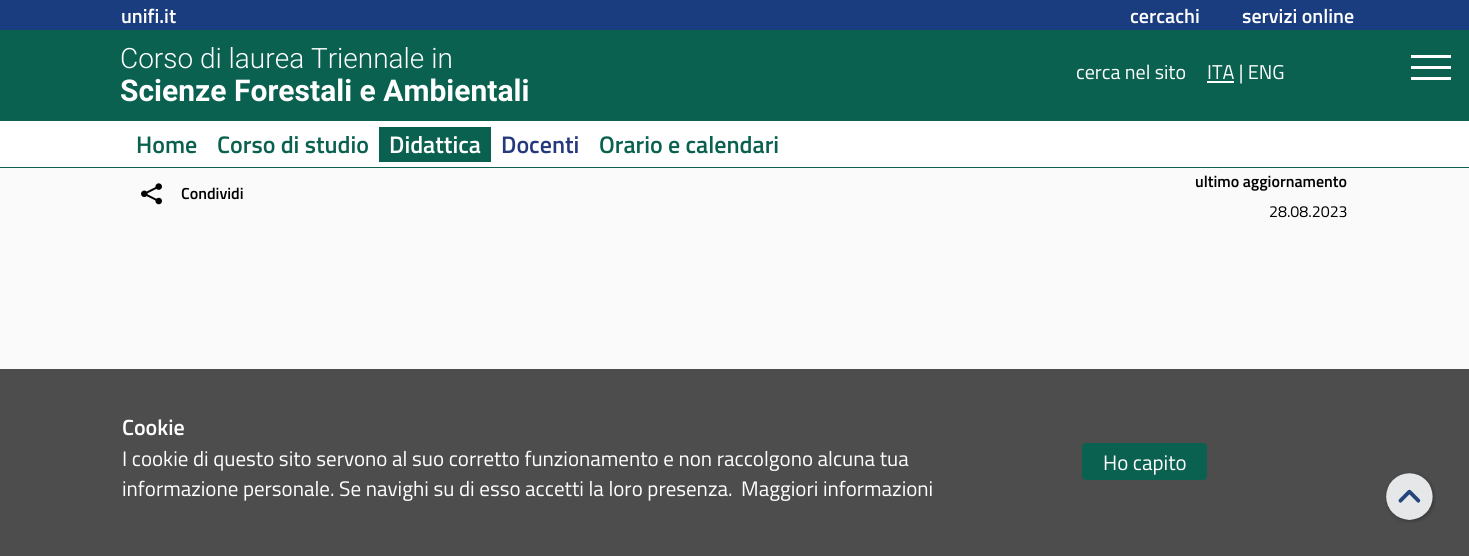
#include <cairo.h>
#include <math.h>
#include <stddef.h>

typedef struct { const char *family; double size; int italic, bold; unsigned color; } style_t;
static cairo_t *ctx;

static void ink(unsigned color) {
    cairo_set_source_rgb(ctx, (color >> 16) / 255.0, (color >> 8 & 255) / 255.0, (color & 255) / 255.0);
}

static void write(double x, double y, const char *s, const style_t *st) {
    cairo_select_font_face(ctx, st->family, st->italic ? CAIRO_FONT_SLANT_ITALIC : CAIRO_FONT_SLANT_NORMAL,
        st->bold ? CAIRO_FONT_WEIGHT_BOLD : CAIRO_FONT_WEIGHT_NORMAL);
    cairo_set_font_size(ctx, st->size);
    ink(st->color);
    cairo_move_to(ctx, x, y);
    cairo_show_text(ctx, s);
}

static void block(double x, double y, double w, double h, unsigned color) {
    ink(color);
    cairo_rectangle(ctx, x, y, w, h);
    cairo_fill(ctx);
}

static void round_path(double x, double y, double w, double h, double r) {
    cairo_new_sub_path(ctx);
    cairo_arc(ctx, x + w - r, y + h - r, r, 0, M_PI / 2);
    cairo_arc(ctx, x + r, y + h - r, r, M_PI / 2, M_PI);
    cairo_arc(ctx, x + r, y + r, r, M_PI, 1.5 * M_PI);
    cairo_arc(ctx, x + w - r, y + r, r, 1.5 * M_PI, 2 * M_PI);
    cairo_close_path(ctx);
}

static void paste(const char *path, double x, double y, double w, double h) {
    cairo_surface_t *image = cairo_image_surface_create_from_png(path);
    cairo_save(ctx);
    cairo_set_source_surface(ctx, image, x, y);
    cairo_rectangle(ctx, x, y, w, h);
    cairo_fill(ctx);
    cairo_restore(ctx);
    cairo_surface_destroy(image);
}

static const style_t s1 = {"Titillium Web SemiBold", 20, 0, 0, 0xffffff};
static const style_t s2 = {"Roboto Light", 28, 0, 0, 0xffffff};
static const style_t s3 = {"Roboto", 30, 0, 1, 0xffffff};
static const style_t s4 = {"Titillium Web", 20, 0, 0, 0xffffff};
static const style_t s5 = {"Titillium Web SemiBold", 24, 0, 0, 0x0b6150};
static const style_t s6 = {"Titillium Web SemiBold", 24, 0, 0, 0xffffff};
static const style_t s7 = {"Titillium Web SemiBold", 24, 0, 0, 0x26397e};
static const style_t s8 = {"Titillium Web SemiBold", 16, 0, 0, 0x000000};
static const style_t s9 = {"Titillium Web", 16, 0, 0, 0x000000};
static const style_t s10 = {"Titillium Web SemiBold", 22, 0, 0, 0xffffff};
static const style_t s11 = {"Titillium Web", 21, 0, 0, 0xffffff};

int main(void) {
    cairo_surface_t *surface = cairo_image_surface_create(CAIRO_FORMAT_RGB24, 1469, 556);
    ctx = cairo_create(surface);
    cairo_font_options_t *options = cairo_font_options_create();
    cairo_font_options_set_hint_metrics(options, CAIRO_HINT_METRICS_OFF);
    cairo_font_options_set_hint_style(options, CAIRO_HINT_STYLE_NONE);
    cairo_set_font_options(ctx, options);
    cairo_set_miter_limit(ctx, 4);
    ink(0xfafafa);
    cairo_paint(ctx);
    block(0, 0, 1469, 30, 0x1a3d7f);
    write(121, 23, "unifi.it", &s1);
    write(1130, 23, "cercachi", &s1);
    write(1242, 23, "servizi online", &s1);
    block(0, 30, 1469, 91, 0x0b6150);
    write(120, 68, "Corso di laurea Triennale in", &s2);
    write(120, 101, "Scienze Forestali e Ambientali", &s3);
    write(1076, 79, "cerca nel sito", &s4);
    block(1207, 81, 27, 2, 0xffffff);
    write(1207, 79, "ITA | ENG", &s4);
    block(0, 121, 1469, 46, 0xffffff);
    block(0, 167, 1469, 1, 0x0b6150);
    write(136, 153, "Home", &s5);
    write(217, 153, "Corso di studio", &s5);
    block(379, 127, 112, 35, 0x0b6150);
    write(389, 153, "Didattica", &s6);
    write(501, 153, "Docenti", &s7);
    write(599, 153, "Orario e calendari", &s5);
    paste("pic1.png", 141, 183, 21, 22);
    write(181, 199, "Condividi", &s8);
    write(1195, 187, "ultimo aggiornamento", &s8);
    write(1269, 217, "28.08.2023", &s9);
    block(0, 369, 1469, 187, 0x4d4d4d);
    write(122, 435, "Cookie", &s10);
    write(122, 466, "I cookie di questo sito servono al suo corretto funzionamento e non raccolgono alcuna tua", &s11);
    write(122, 496, "informazione personale. Se navighi su di esso accetti la loro presenza.", &s11);
    write(741, 496, "Maggiori informazioni", &s11);
    ink(0x0b6150);
    round_path(1082, 443, 125, 37, 4);
    cairo_fill(ctx);
    write(1103, 470, "Ho capito", &s11);
    paste("pic2.png", 1385, 472, 51, 51);
    block(1411, 55, 40, 3, 0xffffff);
    block(1411, 66, 40, 3, 0xffffff);
    block(1411, 77, 40, 3, 0xffffff);
    cairo_surface_write_to_png(surface, "screenshot.png");
    cairo_font_options_destroy(options);
    cairo_destroy(ctx);
    cairo_surface_destroy(surface);
    return 0;
}
